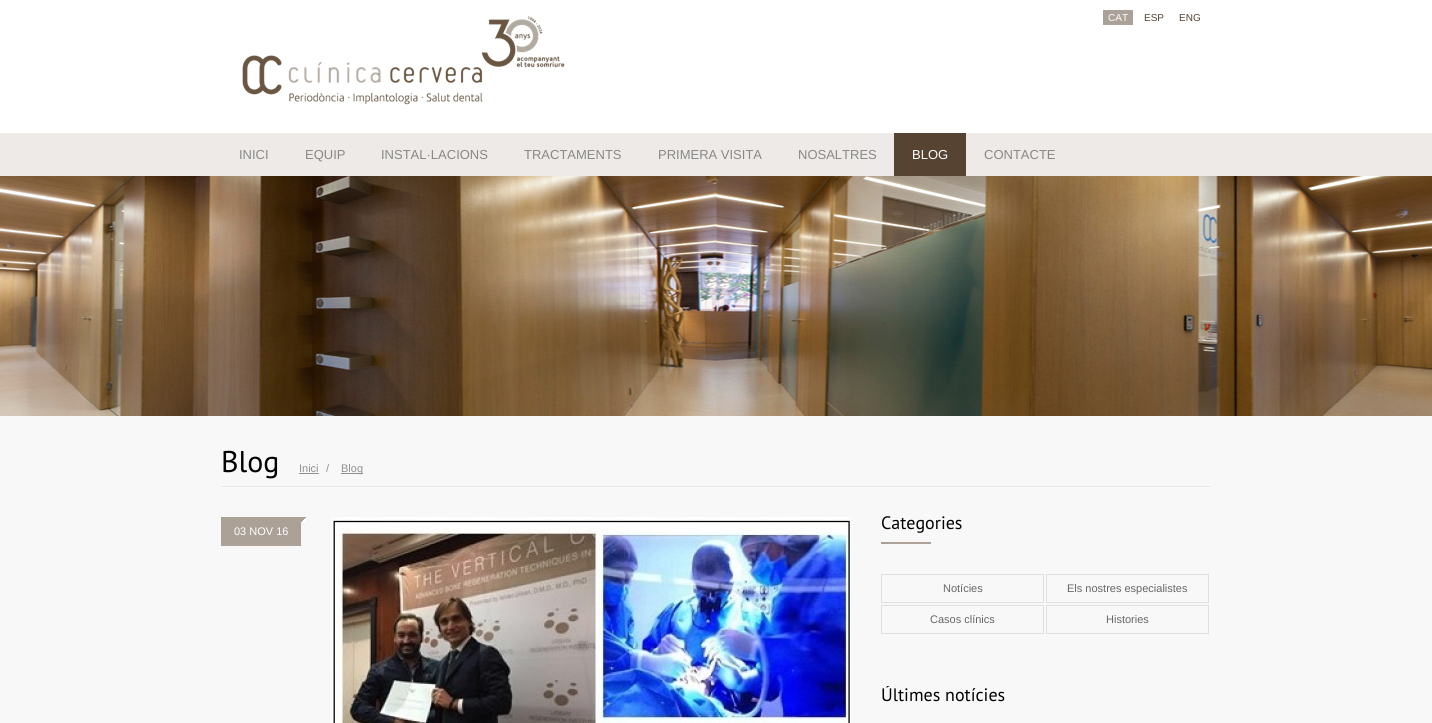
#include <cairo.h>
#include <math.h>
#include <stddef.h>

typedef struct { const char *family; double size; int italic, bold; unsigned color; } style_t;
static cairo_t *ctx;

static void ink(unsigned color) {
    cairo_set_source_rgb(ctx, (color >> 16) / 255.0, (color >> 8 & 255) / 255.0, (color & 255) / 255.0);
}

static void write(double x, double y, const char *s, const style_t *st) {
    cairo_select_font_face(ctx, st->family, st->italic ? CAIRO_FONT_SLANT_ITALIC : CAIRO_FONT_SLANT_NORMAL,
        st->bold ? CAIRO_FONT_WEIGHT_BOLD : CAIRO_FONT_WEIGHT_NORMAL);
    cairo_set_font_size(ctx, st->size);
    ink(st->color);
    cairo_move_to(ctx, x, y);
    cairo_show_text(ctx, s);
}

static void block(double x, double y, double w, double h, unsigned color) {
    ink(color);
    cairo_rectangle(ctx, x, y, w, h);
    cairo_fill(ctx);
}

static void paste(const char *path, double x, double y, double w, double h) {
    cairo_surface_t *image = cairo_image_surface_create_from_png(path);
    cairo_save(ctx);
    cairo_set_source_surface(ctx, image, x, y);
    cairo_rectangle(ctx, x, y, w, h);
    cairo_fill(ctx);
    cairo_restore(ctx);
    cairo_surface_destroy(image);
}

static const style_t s1 = {"Liberation Sans", 10, 0, 0, 0xffffff};
static const style_t s2 = {"Liberation Sans", 10, 0, 0, 0x564332};
static const style_t s3 = {"Liberation Sans", 13, 0, 0, 0x888888};
static const style_t s4 = {"Liberation Sans", 13, 0, 0, 0xffffff};
static const style_t s5 = {"PT Sans", 30, 0, 0, 0x000000};
static const style_t s6 = {"Liberation Sans", 11, 0, 0, 0x909090};
static const style_t s7 = {"Liberation Sans", 11, 0, 0, 0xffffff};
static const style_t s8 = {"PT Sans", 18, 0, 0, 0x000000};
static const style_t s9 = {"Liberation Sans", 11, 0, 0, 0x666666};

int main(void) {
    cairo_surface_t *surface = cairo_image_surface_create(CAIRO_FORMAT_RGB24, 1432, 723);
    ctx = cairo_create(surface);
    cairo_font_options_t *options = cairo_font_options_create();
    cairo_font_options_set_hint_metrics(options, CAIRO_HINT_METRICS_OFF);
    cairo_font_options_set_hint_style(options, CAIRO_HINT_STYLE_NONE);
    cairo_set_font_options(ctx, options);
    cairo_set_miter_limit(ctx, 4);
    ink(0xf8f8f8);
    cairo_paint(ctx);
    block(0, 0, 1432, 133, 0xffffff);
    block(0, 133, 1432, 43, 0xeeeae7);
    paste("pic1.png", 242, 16, 323, 89);
    block(1103, 10, 30, 15, 0xaba198);
    write(1108, 21, "CAT", &s1);
    write(1144, 21, "ESP", &s2);
    write(1179, 21, "ENG", &s2);
    write(239, 159, "INICI", &s3);
    write(305, 159, "EQUIP", &s3);
    write(381, 159, "INSTAL·LACIONS", &s3);
    write(524, 159, "TRACTAMENTS", &s3);
    write(658, 159, "PRIMERA VISITA", &s3);
    write(798, 159, "NOSALTRES", &s3);
    block(894, 133, 72, 43, 0x564332);
    write(912, 159, "BLOG", &s4);
    write(984, 159, "CONTACTE", &s3);
    paste("pic2.png", 0, 176, 1432, 240);
    block(221, 486, 990, 1, 0xe8e8e8);
    write(221, 472, "Blog", &s5);
    write(299, 472, "Inici", &s6);
    block(299, 473, 20, 1, 0x909090);
    write(326, 472, "/", &s6);
    block(341, 473, 22, 1, 0x909090);
    write(341, 472, "Blog", &s6);
    block(301, 517, 5, 5, 0xaba197);
    paste("pic3.png", 302, 518, 4, 4);
    block(221, 517, 80, 29, 0xaba197);
    write(234, 535, "03 NOV 16", &s7);
    paste("pic4.png", 331, 517, 520, 206);
    write(881, 529, "Categories", &s8);
    block(881, 542, 50, 2, 0xaba197);
    cairo_rectangle(ctx, 881.5, 574.5, 162, 28);
    ink(0xe0e0e0);
    cairo_set_line_width(ctx, 1);
    cairo_stroke(ctx);
    write(943, 592, "Notícies", &s9);
    cairo_rectangle(ctx, 1046.5, 574.5, 162, 28);
    ink(0xe0e0e0);
    cairo_stroke(ctx);
    write(1067, 592, "Els nostres especialistes", &s9);
    cairo_rectangle(ctx, 881.5, 605.5, 162, 28);
    ink(0xe0e0e0);
    cairo_stroke(ctx);
    write(930, 623, "Casos clínics", &s9);
    cairo_rectangle(ctx, 1046.5, 605.5, 162, 28);
    ink(0xe0e0e0);
    cairo_stroke(ctx);
    write(1106, 623, "Histories", &s9);
    cairo_save(ctx);
    cairo_rectangle(ctx, 881, 686, 330, 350);
    cairo_clip(ctx);
    write(881, 701, "Últimes notícies", &s8);
    cairo_restore(ctx);
    cairo_surface_write_to_png(surface, "screenshot.png");
    cairo_font_options_destroy(options);
    cairo_destroy(ctx);
    cairo_surface_destroy(surface);
    return 0;
}
